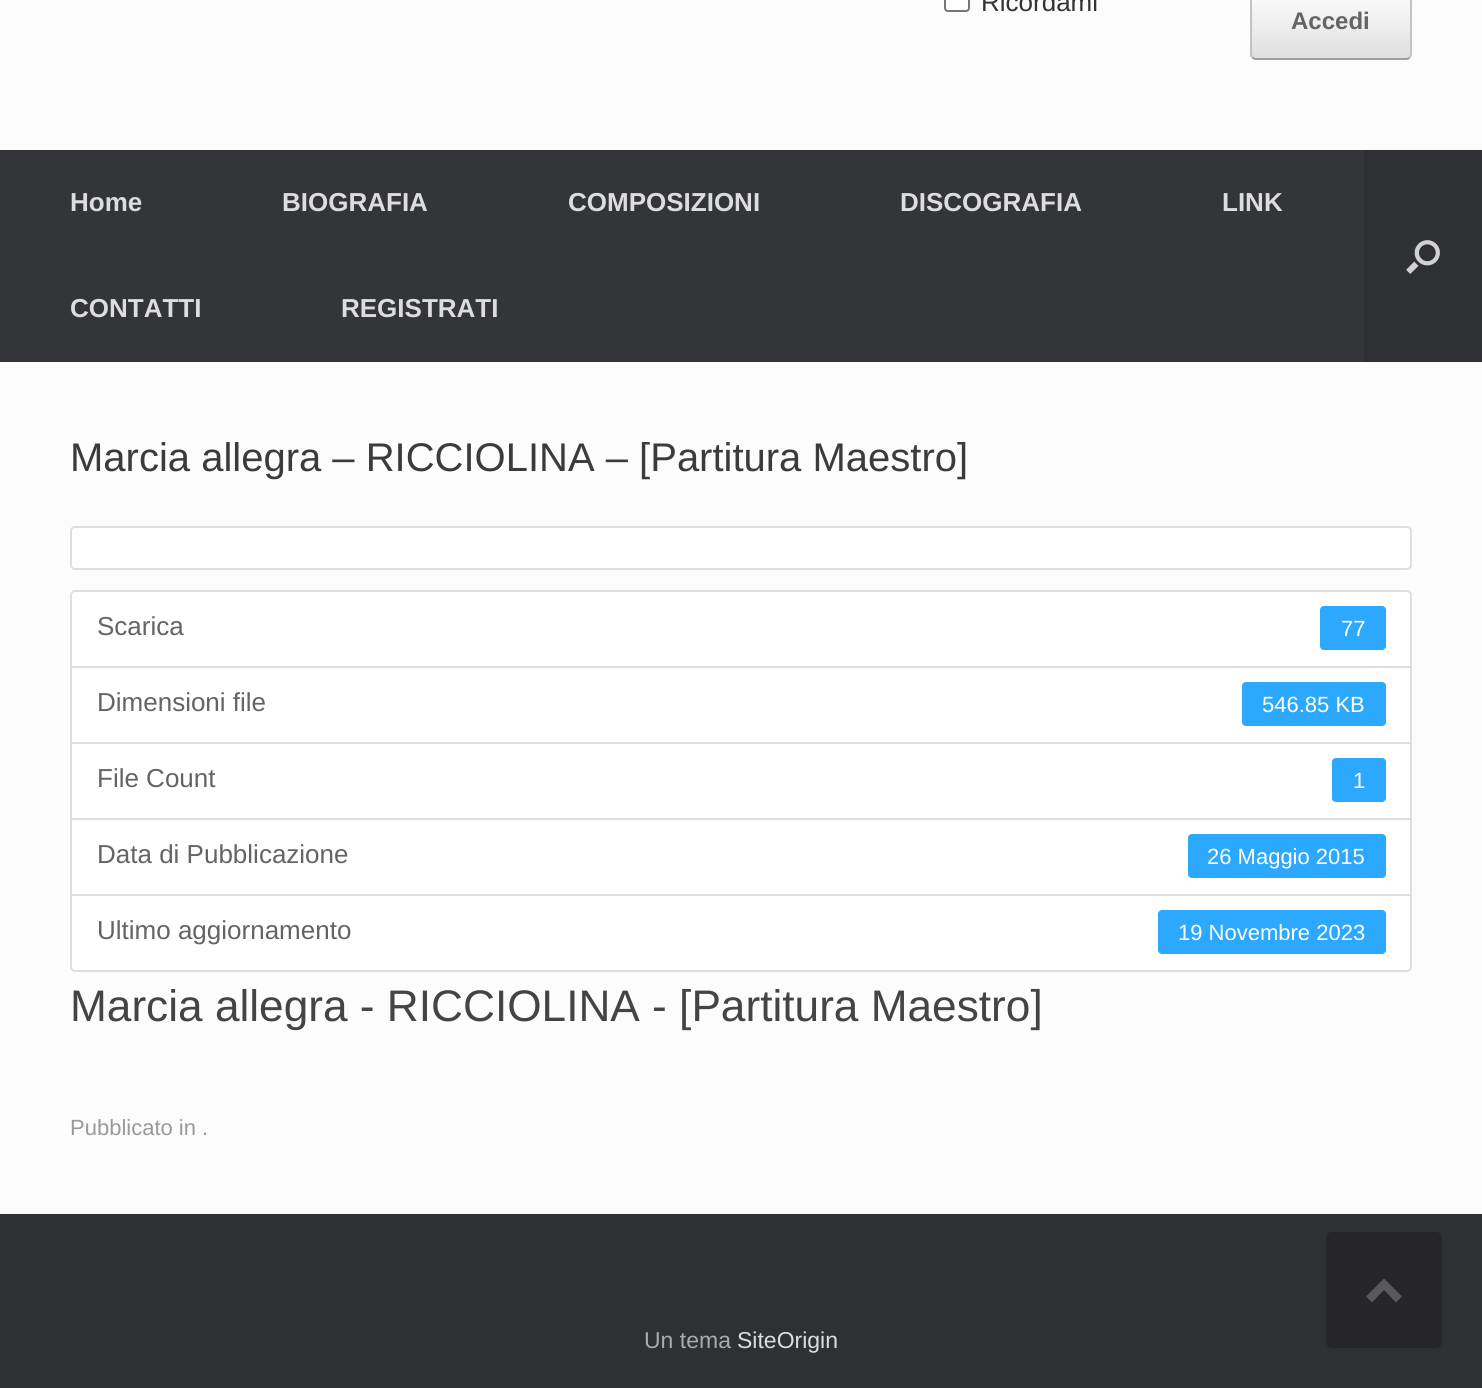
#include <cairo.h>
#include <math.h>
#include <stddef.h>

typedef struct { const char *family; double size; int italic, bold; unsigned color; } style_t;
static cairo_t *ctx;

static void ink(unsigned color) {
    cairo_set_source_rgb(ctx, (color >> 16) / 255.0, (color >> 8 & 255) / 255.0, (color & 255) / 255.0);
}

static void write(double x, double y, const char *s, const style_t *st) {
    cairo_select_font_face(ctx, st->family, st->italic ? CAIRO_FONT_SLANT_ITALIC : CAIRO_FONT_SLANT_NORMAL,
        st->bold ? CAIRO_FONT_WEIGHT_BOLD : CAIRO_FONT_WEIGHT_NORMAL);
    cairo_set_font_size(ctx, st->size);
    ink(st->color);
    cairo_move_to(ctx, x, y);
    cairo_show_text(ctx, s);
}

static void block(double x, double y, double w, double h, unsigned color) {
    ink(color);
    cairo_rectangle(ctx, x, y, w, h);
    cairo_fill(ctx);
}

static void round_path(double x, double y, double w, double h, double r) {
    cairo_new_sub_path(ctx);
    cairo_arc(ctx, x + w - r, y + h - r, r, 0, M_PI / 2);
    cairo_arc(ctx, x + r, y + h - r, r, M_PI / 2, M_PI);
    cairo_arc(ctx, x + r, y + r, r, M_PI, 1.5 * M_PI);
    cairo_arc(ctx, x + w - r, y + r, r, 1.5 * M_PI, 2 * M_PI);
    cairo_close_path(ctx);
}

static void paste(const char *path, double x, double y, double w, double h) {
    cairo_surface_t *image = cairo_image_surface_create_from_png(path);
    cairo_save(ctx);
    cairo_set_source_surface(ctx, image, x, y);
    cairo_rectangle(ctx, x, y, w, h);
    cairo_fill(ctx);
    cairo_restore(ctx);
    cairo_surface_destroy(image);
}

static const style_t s1 = {"Liberation Sans", 26, 0, 0, 0x333333};
static const style_t s2 = {"Liberation Sans", 24, 0, 1, 0x646464};
static const style_t s3 = {"Liberation Sans", 26, 0, 1, 0xdddddd};
static const style_t s4 = {"Liberation Sans", 40, 0, 0, 0x3b3b3b};
static const style_t s5 = {"Liberation Sans", 26, 0, 0, 0x646464};
static const style_t s6 = {"Liberation Sans", 22, 0, 0, 0xffffff};
static const style_t s7 = {"Liberation Sans", 44.2, 0, 0, 0x444444};
static const style_t s8 = {"Liberation Sans", 22, 0, 0, 0x999999};
static const style_t s9 = {"Liberation Sans", 23, 0, 0, 0xaaaaaa};
static const style_t s10 = {"Liberation Sans", 23, 0, 0, 0xdddddd};

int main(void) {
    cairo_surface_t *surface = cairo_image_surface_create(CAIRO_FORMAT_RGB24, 1482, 1388);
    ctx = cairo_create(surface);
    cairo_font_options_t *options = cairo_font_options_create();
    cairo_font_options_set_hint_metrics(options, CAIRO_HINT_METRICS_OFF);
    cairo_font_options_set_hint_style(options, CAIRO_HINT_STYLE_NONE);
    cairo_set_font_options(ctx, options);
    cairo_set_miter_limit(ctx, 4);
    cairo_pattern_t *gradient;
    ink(0x2f3033);
    cairo_paint(ctx);
    block(0, 0, 1482, 150, 0xfcfcfc);
    ink(0xffffff);
    round_path(945, -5, 24, 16, 3);
    cairo_fill_preserve(ctx);
    ink(0x767676);
    cairo_stroke(ctx);
    write(981, 11, "Ricordami", &s1);
    cairo_save(ctx);
    round_path(1250, -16, 162, 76, 6);
    cairo_clip(ctx);
    gradient = cairo_pattern_create_linear(1252, 58, 1252, -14);
    cairo_pattern_add_color_stop_rgba(gradient, 0, 0.875, 0.875, 0.875, 1);
    cairo_pattern_add_color_stop_rgba(gradient, 1, 1, 1, 1, 1);
    cairo_set_source(ctx, gradient);
    cairo_pattern_destroy(gradient);
    cairo_rectangle(ctx, 1250, 0, 162, 58);
    cairo_fill(ctx);
    cairo_restore(ctx);
    cairo_new_path(ctx);
    cairo_move_to(ctx, 1409.5, -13.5);
    cairo_curve_to(ctx, 1410.5, -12.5, 1411, -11.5, 1411, -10);
    cairo_line_to(ctx, 1411, 54);
    cairo_curve_to(ctx, 1411, 55.5, 1410.5, 56.5, 1409.5, 57.5);
    ink(0xc3c3c3);
    cairo_stroke(ctx);
    cairo_new_path(ctx);
    cairo_move_to(ctx, 1409.5, 57.5);
    cairo_curve_to(ctx, 1408.5, 58.5, 1407.5, 59, 1406, 59);
    cairo_line_to(ctx, 1256, 59);
    cairo_curve_to(ctx, 1254.5, 59, 1253.5, 58.5, 1252.5, 57.5);
    ink(0x9f9f9f);
    cairo_stroke(ctx);
    cairo_new_path(ctx);
    cairo_move_to(ctx, 1252.5, 57.5);
    cairo_curve_to(ctx, 1251.5, 56.5, 1251, 55.5, 1251, 54);
    cairo_line_to(ctx, 1251, -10);
    cairo_curve_to(ctx, 1251, -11.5, 1251.5, -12.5, 1252.5, -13.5);
    ink(0xc3c3c3);
    cairo_stroke(ctx);
    write(1291, 29, "Accedi", &s2);
    block(0, 150, 1364, 212, 0x343538);
    write(70, 211, "Home", &s3);
    write(282, 211, "BIOGRAFIA", &s3);
    write(568, 211, "COMPOSIZIONI", &s3);
    write(900, 211, "DISCOGRAFIA", &s3);
    write(1222, 211, "LINK", &s3);
    write(70, 317, "CONTATTI", &s3);
    write(341, 317, "REGISTRATI", &s3);
    paste("pic1.png", 1406, 240, 34, 34);
    block(0, 362, 1482, 852, 0xfcfcfc);
    write(70, 471, "Marcia allegra – RICCIOLINA – [Partitura Maestro]", &s4);
    ink(0xffffff);
    round_path(71, 527, 1340, 42, 4);
    cairo_fill_preserve(ctx);
    ink(0xdfdfdf);
    cairo_stroke(ctx);
    ink(0xffffff);
    cairo_new_path(ctx);
    cairo_move_to(ctx, 75, 591);
    cairo_line_to(ctx, 1407, 591);
    cairo_curve_to(ctx, 1409, 591, 1411, 593, 1411, 595);
    cairo_line_to(ctx, 1411, 667);
    cairo_line_to(ctx, 71, 667);
    cairo_line_to(ctx, 71, 595);
    cairo_curve_to(ctx, 71, 593, 73, 591, 75, 591);
    cairo_close_path(ctx);
    cairo_fill_preserve(ctx);
    ink(0xdfdfdf);
    cairo_stroke(ctx);
    write(97, 635, "Scarica", &s5);
    ink(0x2ca8ff);
    round_path(1320, 606, 66, 44, 4);
    cairo_fill(ctx);
    write(1341, 636, "77", &s6);
    cairo_rectangle(ctx, 71, 667, 1340, 76);
    cairo_fill_preserve(ctx);
    ink(0xdfdfdf);
    cairo_stroke(ctx);
    write(97, 711, "Dimensioni file", &s5);
    ink(0x2ca8ff);
    round_path(1242, 682, 144, 44, 4);
    cairo_fill(ctx);
    write(1262, 712, "546.85 KB", &s6);
    cairo_rectangle(ctx, 71, 743, 1340, 76);
    cairo_fill_preserve(ctx);
    ink(0xdfdfdf);
    cairo_stroke(ctx);
    write(97, 787, "File Count", &s5);
    ink(0x2ca8ff);
    round_path(1332, 758, 54, 44, 4);
    cairo_fill(ctx);
    write(1353, 788, "1", &s6);
    cairo_rectangle(ctx, 71, 819, 1340, 76);
    cairo_fill_preserve(ctx);
    ink(0xdfdfdf);
    cairo_stroke(ctx);
    write(97, 863, "Data di Pubblicazione", &s5);
    ink(0x2ca8ff);
    round_path(1188, 834, 198, 44, 4);
    cairo_fill(ctx);
    write(1207, 864, "26 Maggio 2015", &s6);
    cairo_new_path(ctx);
    cairo_move_to(ctx, 71, 895);
    cairo_line_to(ctx, 1411, 895);
    cairo_line_to(ctx, 1411, 967);
    cairo_curve_to(ctx, 1411, 969, 1409, 971, 1407, 971);
    cairo_line_to(ctx, 75, 971);
    cairo_curve_to(ctx, 73, 971, 71, 969, 71, 967);
    cairo_close_path(ctx);
    cairo_fill_preserve(ctx);
    ink(0xdfdfdf);
    cairo_stroke(ctx);
    write(97, 939, "Ultimo aggiornamento", &s5);
    ink(0x2ca8ff);
    round_path(1158, 910, 228, 44, 4);
    cairo_fill(ctx);
    write(1178, 940, "19 Novembre 2023", &s6);
    write(70, 1021, "Marcia allegra - RICCIOLINA - [Partitura Maestro]", &s7);
    write(70, 1135, "Pubblicato in .", &s8);
    write(644, 1348, "Un tema", &s9);
    write(737, 1348, "SiteOrigin", &s10);
    ink(0x262629);
    round_path(1326, 1232, 116, 116, 6);
    cairo_fill(ctx);
    ink(0x59595c);
    cairo_new_path(ctx);
    cairo_move_to(ctx, 1402, 1296.5);
    cairo_line_to(ctx, 1384, 1278.5);
    cairo_line_to(ctx, 1366, 1296.5);
    cairo_line_to(ctx, 1372, 1302.5);
    cairo_line_to(ctx, 1384, 1290);
    cairo_line_to(ctx, 1396, 1302.5);
    cairo_close_path(ctx);
    cairo_fill(ctx);
    cairo_surface_write_to_png(surface, "screenshot.png");
    cairo_font_options_destroy(options);
    cairo_destroy(ctx);
    cairo_surface_destroy(surface);
    return 0;
}
